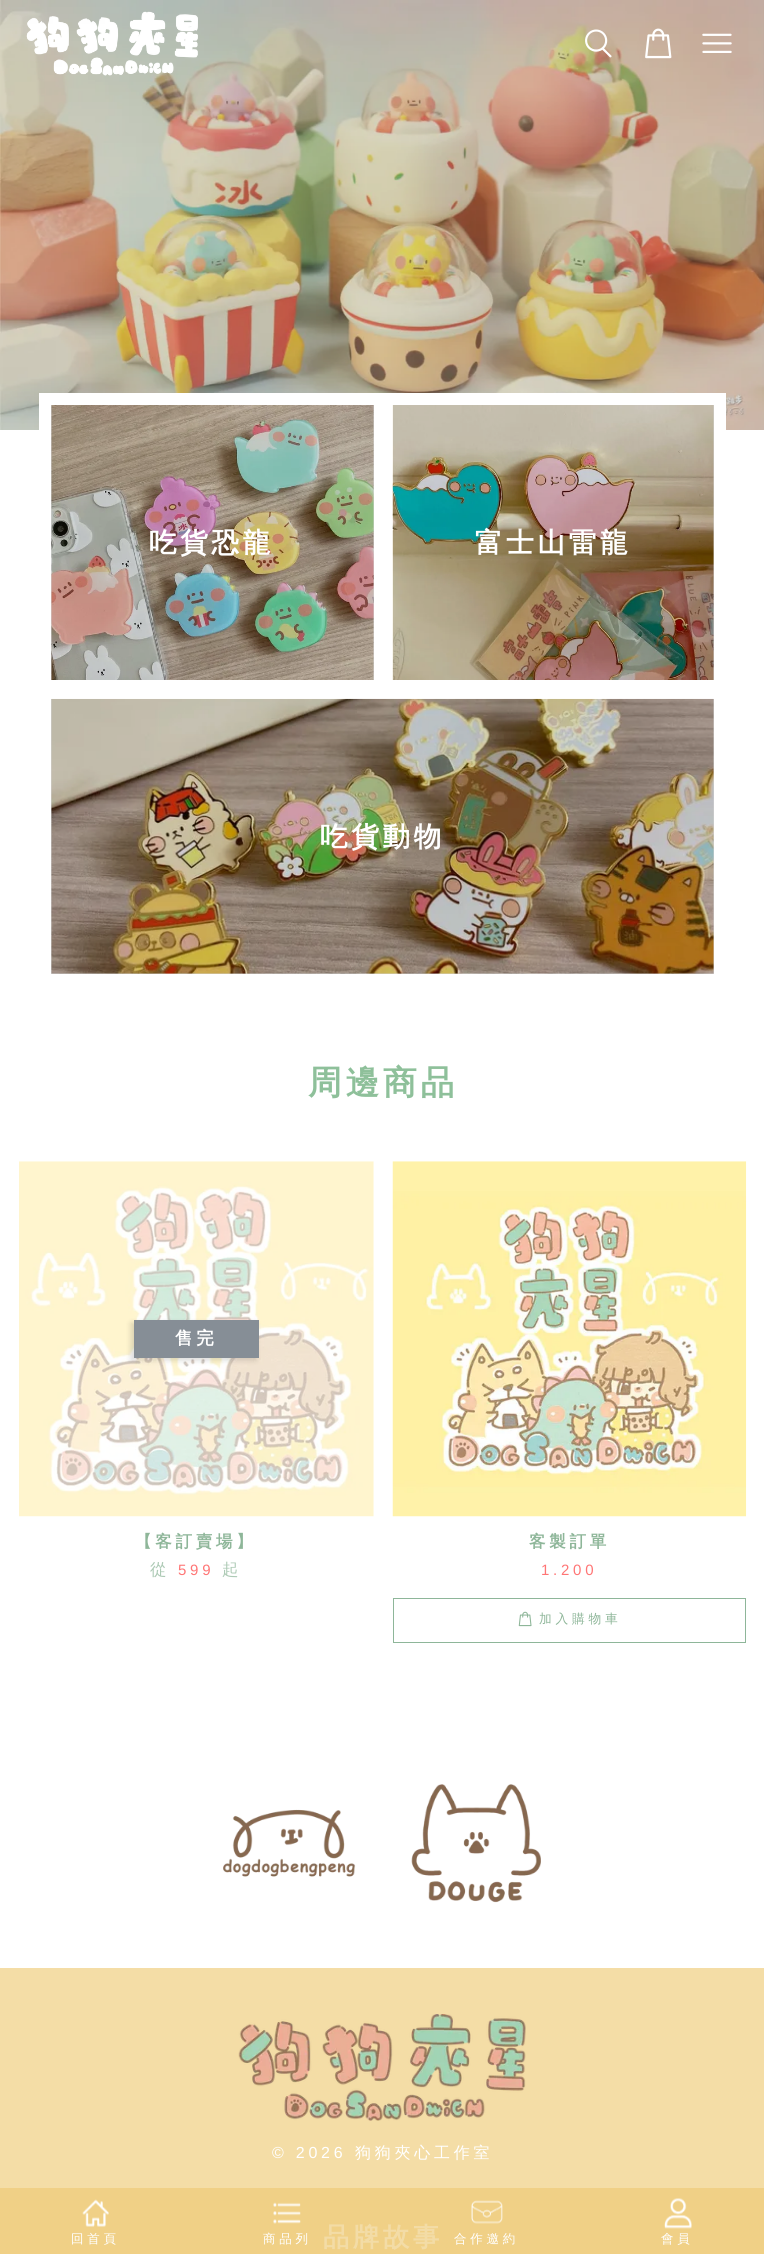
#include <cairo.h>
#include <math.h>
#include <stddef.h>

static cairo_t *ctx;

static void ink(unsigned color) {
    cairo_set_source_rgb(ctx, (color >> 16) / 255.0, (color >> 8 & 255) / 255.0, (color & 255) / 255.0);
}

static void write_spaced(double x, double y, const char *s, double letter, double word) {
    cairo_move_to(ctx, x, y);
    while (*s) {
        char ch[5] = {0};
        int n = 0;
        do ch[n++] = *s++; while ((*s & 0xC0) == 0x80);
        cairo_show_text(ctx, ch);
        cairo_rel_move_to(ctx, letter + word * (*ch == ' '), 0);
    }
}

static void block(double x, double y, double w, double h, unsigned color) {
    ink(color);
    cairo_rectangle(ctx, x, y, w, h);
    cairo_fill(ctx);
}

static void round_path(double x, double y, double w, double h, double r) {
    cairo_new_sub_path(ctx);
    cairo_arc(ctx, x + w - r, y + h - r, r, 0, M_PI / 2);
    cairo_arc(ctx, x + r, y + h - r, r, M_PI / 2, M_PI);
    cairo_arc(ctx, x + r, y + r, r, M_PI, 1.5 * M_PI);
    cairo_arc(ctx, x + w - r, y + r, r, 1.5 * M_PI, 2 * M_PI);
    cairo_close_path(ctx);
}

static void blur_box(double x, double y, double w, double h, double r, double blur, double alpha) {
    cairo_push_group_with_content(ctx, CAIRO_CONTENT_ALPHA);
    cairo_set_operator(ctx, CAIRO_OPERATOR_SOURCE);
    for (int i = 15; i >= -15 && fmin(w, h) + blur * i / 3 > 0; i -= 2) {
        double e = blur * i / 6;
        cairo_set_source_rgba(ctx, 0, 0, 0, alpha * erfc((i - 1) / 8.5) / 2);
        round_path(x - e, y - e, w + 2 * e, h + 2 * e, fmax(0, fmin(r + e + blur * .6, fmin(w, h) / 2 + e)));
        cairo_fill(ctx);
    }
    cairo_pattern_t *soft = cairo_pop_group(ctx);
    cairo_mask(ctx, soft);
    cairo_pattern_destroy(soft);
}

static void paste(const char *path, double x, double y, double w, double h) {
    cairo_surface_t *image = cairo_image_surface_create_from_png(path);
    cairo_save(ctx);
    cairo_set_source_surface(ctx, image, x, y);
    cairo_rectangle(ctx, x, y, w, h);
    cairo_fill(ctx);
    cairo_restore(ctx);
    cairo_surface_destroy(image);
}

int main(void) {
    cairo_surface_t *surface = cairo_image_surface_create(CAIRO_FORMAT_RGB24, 764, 2254);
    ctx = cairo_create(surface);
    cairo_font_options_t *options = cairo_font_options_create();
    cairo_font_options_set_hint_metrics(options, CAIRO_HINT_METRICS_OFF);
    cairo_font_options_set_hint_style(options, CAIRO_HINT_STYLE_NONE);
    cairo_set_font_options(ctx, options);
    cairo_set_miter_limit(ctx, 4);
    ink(0xffffff);
    cairo_paint(ctx);
    paste("pic1.png", 0, 0, 764, 430);
    paste("pic2.png", 26, 11, 172, 65);
    paste("pic3.png", 585, 29, 27, 29);
    paste("pic4.png", 645, 28, 27, 31);
    paste("pic5.png", 702, 33, 30, 20);
    block(39, 393, 687, 37, 0xffffff);
    block(51, 699, 663, 275, 0xd4d4d4);
    paste("pic6.png", 51, 405, 323, 275);
    cairo_set_source_rgba(ctx, 0, 0, 0, 0.17);
    cairo_rectangle(ctx, 51, 405, 323, 275);
    cairo_fill(ctx);
    cairo_select_font_face(ctx, "WenQuanYi Zen Hei", CAIRO_FONT_SLANT_NORMAL, CAIRO_FONT_WEIGHT_BOLD);
    cairo_set_font_size(ctx, 27.5);
    ink(0xffffff);
    write_spaced(149, 552, "吃貨恐龍", 3.75, 0);
    paste("pic7.png", 392, 405, 322, 275);
    cairo_set_source_rgba(ctx, 0, 0, 0, 0.17);
    cairo_rectangle(ctx, 393, 405, 321, 275);
    cairo_fill(ctx);
    ink(0xffffff);
    write_spaced(475, 552, "富士山雷龍", 3.75, 0);
    paste("pic8.png", 51, 698, 663, 276);
    write_spaced(320, 846, "吃貨動物", 3.75, 0);
    cairo_set_font_size(ctx, 33.75);
    ink(0x8ec09a);
    write_spaced(308, 1094, "周邊商品", 3.75, 0);
    paste("pic9.png", 19, 1161, 355, 356);
    ink(0x000000);
    blur_box(131, 1323, 125, 37, 0, 3, 0.15);
    block(134, 1320, 125, 38, 0x868e96);
    cairo_set_font_size(ctx, 17.5);
    ink(0xffffff);
    write_spaced(175, 1344, "售完", 3.75, 0);
    cairo_set_font_size(ctx, 16.5);
    ink(0x8eb699);
    write_spaced(135, 1547, "【客訂賣場】", 3.75, 0);
    cairo_select_font_face(ctx, "WenQuanYi Zen Hei Medium", CAIRO_FONT_SLANT_NORMAL, CAIRO_FONT_WEIGHT_NORMAL);
    ink(0xadcab5);
    write_spaced(150, 1575, "從", 3.75, 0);
    cairo_select_font_face(ctx, "Liberation Sans", CAIRO_FONT_SLANT_NORMAL, CAIRO_FONT_WEIGHT_NORMAL);
    cairo_set_font_size(ctx, 15);
    ink(0xff7575);
    write_spaced(178, 1575, "599", 3.75, 0);
    cairo_select_font_face(ctx, "WenQuanYi Zen Hei Medium", CAIRO_FONT_SLANT_NORMAL, CAIRO_FONT_WEIGHT_NORMAL);
    cairo_set_font_size(ctx, 16.5);
    ink(0xadcab5);
    write_spaced(222, 1575, "起", 3.75, 0);
    paste("pic10.png", 392, 1161, 355, 356);
    cairo_select_font_face(ctx, "WenQuanYi Zen Hei", CAIRO_FONT_SLANT_NORMAL, CAIRO_FONT_WEIGHT_BOLD);
    ink(0x8eb699);
    write_spaced(529, 1547, "客製訂單", 3.75, 0);
    cairo_select_font_face(ctx, "Liberation Sans", CAIRO_FONT_SLANT_NORMAL, CAIRO_FONT_WEIGHT_NORMAL);
    cairo_set_font_size(ctx, 15);
    ink(0xff7575);
    write_spaced(541, 1575, "1.200", 3.75, 0);
    cairo_rectangle(ctx, 393.5, 1598.5, 352, 44);
    ink(0x8eb699);
    cairo_set_line_width(ctx, 1);
    cairo_stroke(ctx);
    paste("pic11.png", 518, 1611, 14, 16);
    cairo_select_font_face(ctx, "WenQuanYi Zen Hei Medium", CAIRO_FONT_SLANT_NORMAL, CAIRO_FONT_WEIGHT_NORMAL);
    cairo_set_font_size(ctx, 12.75);
    write_spaced(539, 1623, "加入購物車", 3.75, 0);
    block(0, 1968, 764, 220, 0xf4dda6);
    block(0, 2188, 764, 66, 0xf0d086);
    paste("pic12.png", 223, 1809, 133, 68);
    paste("pic13.png", 411, 1784, 130, 119);
    paste("pic14.png", 238, 2014, 288, 107);
    cairo_select_font_face(ctx, "Liberation Sans", CAIRO_FONT_SLANT_NORMAL, CAIRO_FONT_WEIGHT_NORMAL);
    cairo_set_font_size(ctx, 16);
    ink(0xffffff);
    write_spaced(272, 2158, "© 2026", 3.75, 0);
    cairo_select_font_face(ctx, "WenQuanYi Zen Hei Medium", CAIRO_FONT_SLANT_NORMAL, CAIRO_FONT_WEIGHT_NORMAL);
    write_spaced(355, 2158, "狗狗夾心工作室", 3.75, 0);
    cairo_select_font_face(ctx, "WenQuanYi Zen Hei", CAIRO_FONT_SLANT_NORMAL, CAIRO_FONT_WEIGHT_BOLD);
    cairo_set_font_size(ctx, 26.25);
    ink(0xf3dca6);
    write_spaced(323, 2246, "品牌故事", 3.75, 0);
    paste("pic15.png", 82, 2199, 27, 28);
    cairo_select_font_face(ctx, "WenQuanYi Zen Hei Medium", CAIRO_FONT_SLANT_NORMAL, CAIRO_FONT_WEIGHT_NORMAL);
    cairo_set_font_size(ctx, 12.5);
    ink(0xffffff);
    write_spaced(71, 2243, "回首頁", 3.75, 0);
    paste("pic16.png", 273, 2202, 28, 22);
    write_spaced(263, 2243, "商品列", 3.75, 0);
    paste("pic17.png", 471, 2200, 32, 24);
    write_spaced(454, 2243, "合作邀約", 3.75, 0);
    paste("pic18.png", 664, 2198, 28, 31);
    write_spaced(661, 2243, "會員", 3.75, 0);
    cairo_surface_write_to_png(surface, "screenshot.png");
    cairo_font_options_destroy(options);
    cairo_destroy(ctx);
    cairo_surface_destroy(surface);
    return 0;
}
